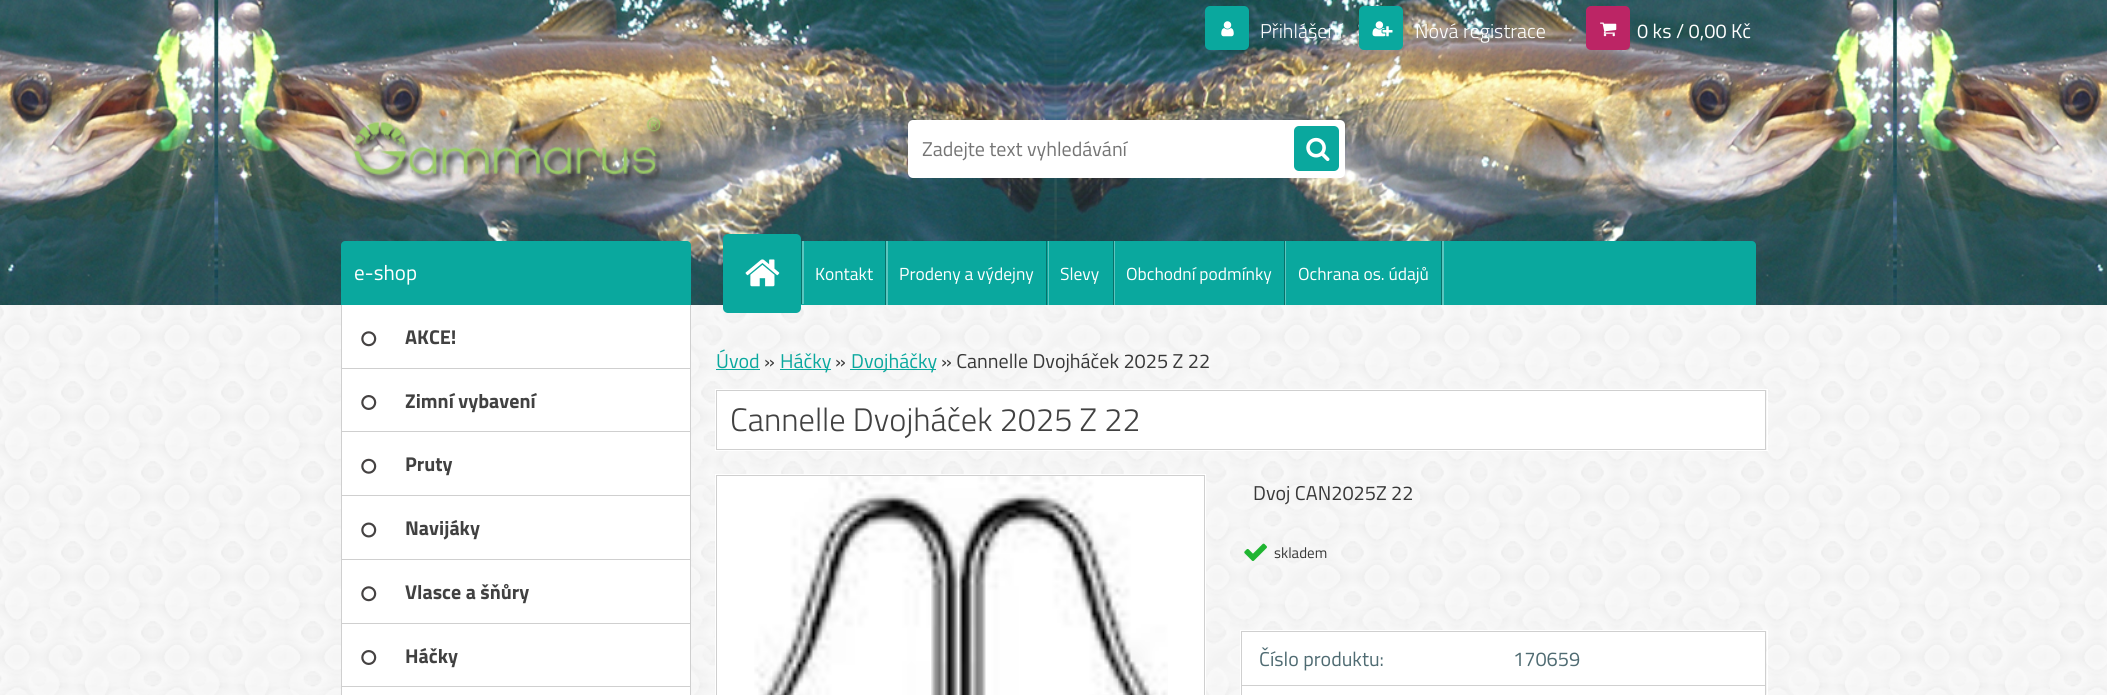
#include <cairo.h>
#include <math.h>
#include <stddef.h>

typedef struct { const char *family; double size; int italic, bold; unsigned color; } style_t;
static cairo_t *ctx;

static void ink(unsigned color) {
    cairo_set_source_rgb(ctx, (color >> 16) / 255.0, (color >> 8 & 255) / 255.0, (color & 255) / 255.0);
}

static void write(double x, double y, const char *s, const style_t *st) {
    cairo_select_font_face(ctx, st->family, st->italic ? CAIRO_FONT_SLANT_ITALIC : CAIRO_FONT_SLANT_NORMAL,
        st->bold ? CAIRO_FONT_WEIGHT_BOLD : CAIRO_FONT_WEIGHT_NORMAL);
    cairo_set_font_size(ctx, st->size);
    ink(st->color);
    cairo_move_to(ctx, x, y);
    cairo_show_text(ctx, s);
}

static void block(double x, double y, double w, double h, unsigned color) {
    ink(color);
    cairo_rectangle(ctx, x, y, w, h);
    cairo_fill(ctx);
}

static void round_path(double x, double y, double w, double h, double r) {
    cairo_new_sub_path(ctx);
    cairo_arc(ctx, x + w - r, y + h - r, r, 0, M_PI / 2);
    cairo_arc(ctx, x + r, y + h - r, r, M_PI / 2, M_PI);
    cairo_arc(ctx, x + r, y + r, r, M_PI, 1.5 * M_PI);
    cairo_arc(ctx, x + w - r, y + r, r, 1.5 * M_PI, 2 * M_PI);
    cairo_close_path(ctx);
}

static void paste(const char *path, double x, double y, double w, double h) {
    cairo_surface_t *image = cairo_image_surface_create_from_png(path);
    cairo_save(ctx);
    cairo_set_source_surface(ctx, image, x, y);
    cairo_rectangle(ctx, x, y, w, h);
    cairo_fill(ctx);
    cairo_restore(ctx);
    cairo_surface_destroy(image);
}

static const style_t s1 = {"Titillium Web Light", 20, 0, 0, 0xffffff};
static const style_t s2 = {"Titillium Web", 20, 0, 0, 0xffffff};
static const style_t s3 = {"Titillium Web", 21, 0, 0, 0xffffff};
static const style_t s4 = {"Titillium Web", 20, 0, 1, 0x414141};
static const style_t s5 = {"Titillium Web", 20, 0, 0, 0x0aa89e};
static const style_t s6 = {"Titillium Web", 20, 0, 0, 0x383838};
static const style_t s7 = {"Titillium Web Light", 32.5, 0, 0, 0x414141};
static const style_t s8 = {"Titillium Web", 15, 0, 0, 0x383838};
static const style_t s9 = {"Titillium Web", 20, 0, 0, 0x4f6b72};
static const style_t s10 = {"Titillium Web", 17.5, 0, 0, 0xffffff};
static const style_t s11 = {"Titillium Web", 20, 0, 0, 0x757575};

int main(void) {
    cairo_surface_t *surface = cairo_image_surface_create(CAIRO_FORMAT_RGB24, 2107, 695);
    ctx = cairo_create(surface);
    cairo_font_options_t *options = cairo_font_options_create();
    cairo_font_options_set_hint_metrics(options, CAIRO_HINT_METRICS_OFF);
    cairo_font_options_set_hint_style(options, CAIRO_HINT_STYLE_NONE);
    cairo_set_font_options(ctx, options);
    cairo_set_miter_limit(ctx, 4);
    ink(0xffffff);
    cairo_paint(ctx);
    paste("pic1.png", 0, 305, 2107, 390);
    paste("pic12.png", 0, 0, 2107, 305);
    ink(0x0aa89e);
    round_path(1205, 6, 44, 44, 5);
    cairo_fill(ctx);
    paste("pic2.png", 1221, 21, 13, 16);
    write(1260, 38, "Přihlášení", &s1);
    ink(0x0aa89e);
    round_path(1359, 6, 44, 44, 5);
    cairo_fill(ctx);
    paste("pic3.png", 1372, 21, 21, 16);
    write(1415, 38, "Nová registrace", &s1);
    ink(0xbc2565);
    round_path(1586, 6, 44, 44, 5);
    cairo_fill(ctx);
    paste("pic4.png", 1600, 22, 17, 15);
    write(1637, 38, "0 ks / 0,00 Kč", &s2);
    ink(0x0aa89e);
    cairo_new_path(ctx);
    cairo_move_to(ctx, 345, 241);
    cairo_line_to(ctx, 687, 241);
    cairo_curve_to(ctx, 689, 241, 691, 243, 691, 245);
    cairo_line_to(ctx, 691, 305);
    cairo_line_to(ctx, 341, 305);
    cairo_line_to(ctx, 341, 245);
    cairo_curve_to(ctx, 341, 243, 343, 241, 345, 241);
    cairo_close_path(ctx);
    cairo_fill(ctx);
    write(354, 280, "e-shop", &s3);
    block(342, 305, 348, 63, 0xffffff);
    block(341, 688, 350, 7, 0xffffff);
    block(690, 305, 1, 390, 0xcfcfcf);
    block(341, 368, 350, 1, 0xcfcfcf);
    block(341, 305, 1, 64, 0xcfcfcf);
    paste("pic5.png", 361, 331, 16, 16);
    write(405, 344, "AKCE!", &s4);
    block(342, 369, 348, 126, 0xffffff);
    block(341, 431, 350, 1, 0xcfcfcf);
    block(341, 369, 1, 64, 0xcfcfcf);
    paste("pic6.png", 361, 395, 16, 15);
    write(405, 408, "Zimní vybavení", &s4);
    block(341, 495, 350, 1, 0xcfcfcf);
    block(341, 433, 1, 63, 0xcfcfcf);
    paste("pic7.png", 361, 458, 16, 16);
    write(405, 471, "Pruty", &s4);
    block(342, 496, 348, 63, 0xffffff);
    block(341, 559, 350, 1, 0xcfcfcf);
    block(341, 496, 1, 64, 0xcfcfcf);
    paste("pic8.png", 361, 522, 16, 16);
    write(405, 535, "Navijáky", &s4);
    block(342, 560, 348, 63, 0xffffff);
    block(341, 623, 350, 1, 0xcfcfcf);
    block(341, 560, 1, 64, 0xcfcfcf);
    paste("pic5.png", 361, 586, 16, 16);
    write(405, 599, "Vlasce a šňůry", &s4);
    block(342, 624, 348, 64, 0xffffff);
    block(341, 686, 350, 1, 0xcfcfcf);
    block(341, 624, 1, 71, 0xcfcfcf);
    paste("pic6.png", 361, 650, 16, 15);
    write(405, 663, "Háčky", &s4);
    write(716, 368, "Úvod", &s5);
    block(716, 369, 44, 1, 0x0aa89e);
    write(764, 368, "»", &s6);
    block(780, 369, 51, 1, 0x0aa89e);
    write(780, 368, "Háčky", &s5);
    write(835, 368, "»", &s6);
    block(850, 369, 86, 1, 0x0aa89e);
    write(851, 368, "Dvojháčky", &s5);
    write(941, 368, "» Cannelle Dvojháček 2025 Z 22", &s6);
    cairo_rectangle(ctx, 715.5, 389.5, 1052, 61);
    ink(0xffffff);
    cairo_set_line_width(ctx, 1);
    cairo_stroke(ctx);
    cairo_rectangle(ctx, 716.5, 390.5, 1049, 59);
    cairo_fill_preserve(ctx);
    ink(0xcfcfcf);
    cairo_stroke(ctx);
    write(730, 431, "Cannelle Dvojháček 2025 Z 22", &s7);
    cairo_rectangle(ctx, 715.5, 474.5, 490, 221);
    ink(0xffffff);
    cairo_stroke(ctx);
    cairo_rectangle(ctx, 716.5, 475.5, 488, 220);
    cairo_fill_preserve(ctx);
    ink(0xcfcfcf);
    cairo_stroke(ctx);
    paste("pic9.png", 754, 476, 414, 219);
    write(1253, 500, "Dvoj CAN2025Z 22", &s6);
    paste("pic10.png", 1244, 543, 23, 18);
    write(1274, 558, "skladem", &s8);
    cairo_rectangle(ctx, 1240.5, 630.5, 527, 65);
    ink(0xffffff);
    cairo_stroke(ctx);
    block(1242, 632, 523, 63, 0xffffff);
    block(1241, 631, 525, 1, 0xcfcfcf);
    block(1765, 631, 1, 64, 0xcfcfcf);
    block(1241, 631, 1, 64, 0xcfcfcf);
    write(1259, 666, "Číslo produktu:", &s9);
    write(1513, 666, "170659", &s9);
    block(1241, 685, 525, 1, 0xcfcfcf);
    ink(0x0aa89e);
    cairo_new_path(ctx);
    cairo_move_to(ctx, 729, 241);
    cairo_line_to(ctx, 1752, 241);
    cairo_curve_to(ctx, 1754, 241, 1756, 243, 1756, 245);
    cairo_line_to(ctx, 1756, 305);
    cairo_line_to(ctx, 725, 305);
    cairo_line_to(ctx, 725, 245);
    cairo_curve_to(ctx, 725, 243, 727, 241, 729, 241);
    cairo_close_path(ctx);
    cairo_fill(ctx);
    ink(0x5bc5be);
    cairo_new_path(ctx);
    cairo_move_to(ctx, 745, 241);
    cairo_line_to(ctx, 802, 241);
    cairo_line_to(ctx, 802, 304);
    cairo_line_to(ctx, 745, 304);
    cairo_line_to(ctx, 804, 304);
    cairo_line_to(ctx, 804, 241);
    cairo_close_path(ctx);
    cairo_fill(ctx);
    block(801, 241, 1, 63, 0x07716a);
    ink(0x0aa89e);
    round_path(723, 234, 78, 79, 5);
    cairo_fill(ctx);
    paste("pic11.png", 745, 259, 35, 28);
    ink(0x5bc5be);
    cairo_new_path(ctx);
    cairo_move_to(ctx, 804, 241);
    cairo_line_to(ctx, 886, 241);
    cairo_line_to(ctx, 886, 305);
    cairo_line_to(ctx, 888, 305);
    cairo_line_to(ctx, 888, 241);
    cairo_close_path(ctx);
    cairo_fill(ctx);
    block(885, 241, 1, 64, 0x07716a);
    write(815, 280, "Kontakt", &s10);
    ink(0x5bc5be);
    cairo_new_path(ctx);
    cairo_move_to(ctx, 888, 241);
    cairo_line_to(ctx, 1048, 241);
    cairo_line_to(ctx, 1048, 305);
    cairo_line_to(ctx, 1049, 305);
    cairo_line_to(ctx, 1049, 241);
    cairo_close_path(ctx);
    cairo_fill(ctx);
    block(1046, 241, 1, 64, 0x07716a);
    write(899, 280, "Prodeny a výdejny", &s10);
    ink(0x5bc5be);
    cairo_new_path(ctx);
    cairo_move_to(ctx, 1049, 241);
    cairo_line_to(ctx, 1114, 241);
    cairo_line_to(ctx, 1114, 305);
    cairo_line_to(ctx, 1115, 305);
    cairo_line_to(ctx, 1115, 241);
    cairo_close_path(ctx);
    cairo_fill(ctx);
    block(1113, 241, 1, 64, 0x07716a);
    write(1060, 280, "Slevy", &s10);
    ink(0x5bc5be);
    cairo_new_path(ctx);
    cairo_move_to(ctx, 1115, 241);
    cairo_line_to(ctx, 1285, 241);
    cairo_line_to(ctx, 1285, 305);
    cairo_line_to(ctx, 1286, 305);
    cairo_line_to(ctx, 1286, 241);
    cairo_close_path(ctx);
    cairo_fill(ctx);
    block(1284, 241, 1, 64, 0x07716a);
    write(1126, 280, "Obchodní podmínky", &s10);
    ink(0x5bc5be);
    cairo_new_path(ctx);
    cairo_move_to(ctx, 1286, 241);
    cairo_line_to(ctx, 1442, 241);
    cairo_line_to(ctx, 1442, 305);
    cairo_line_to(ctx, 1444, 305);
    cairo_line_to(ctx, 1444, 241);
    cairo_close_path(ctx);
    cairo_fill(ctx);
    block(1441, 241, 1, 64, 0x07716a);
    write(1298, 280, "Ochrana os. údajů", &s10);
    paste("pic13.png", 353, 117, 315, 67);
    round_path(908, 120, 437, 58, 5);
    cairo_fill(ctx);
    write(922, 156, "Zadejte text vyhledávání", &s11);
    ink(0x0aa89e);
    round_path(1294, 126, 45, 45, 5);
    cairo_fill(ctx);
    paste("pic14.png", 1306, 137, 24, 25);
    cairo_surface_write_to_png(surface, "screenshot.png");
    cairo_font_options_destroy(options);
    cairo_destroy(ctx);
    cairo_surface_destroy(surface);
    return 0;
}
